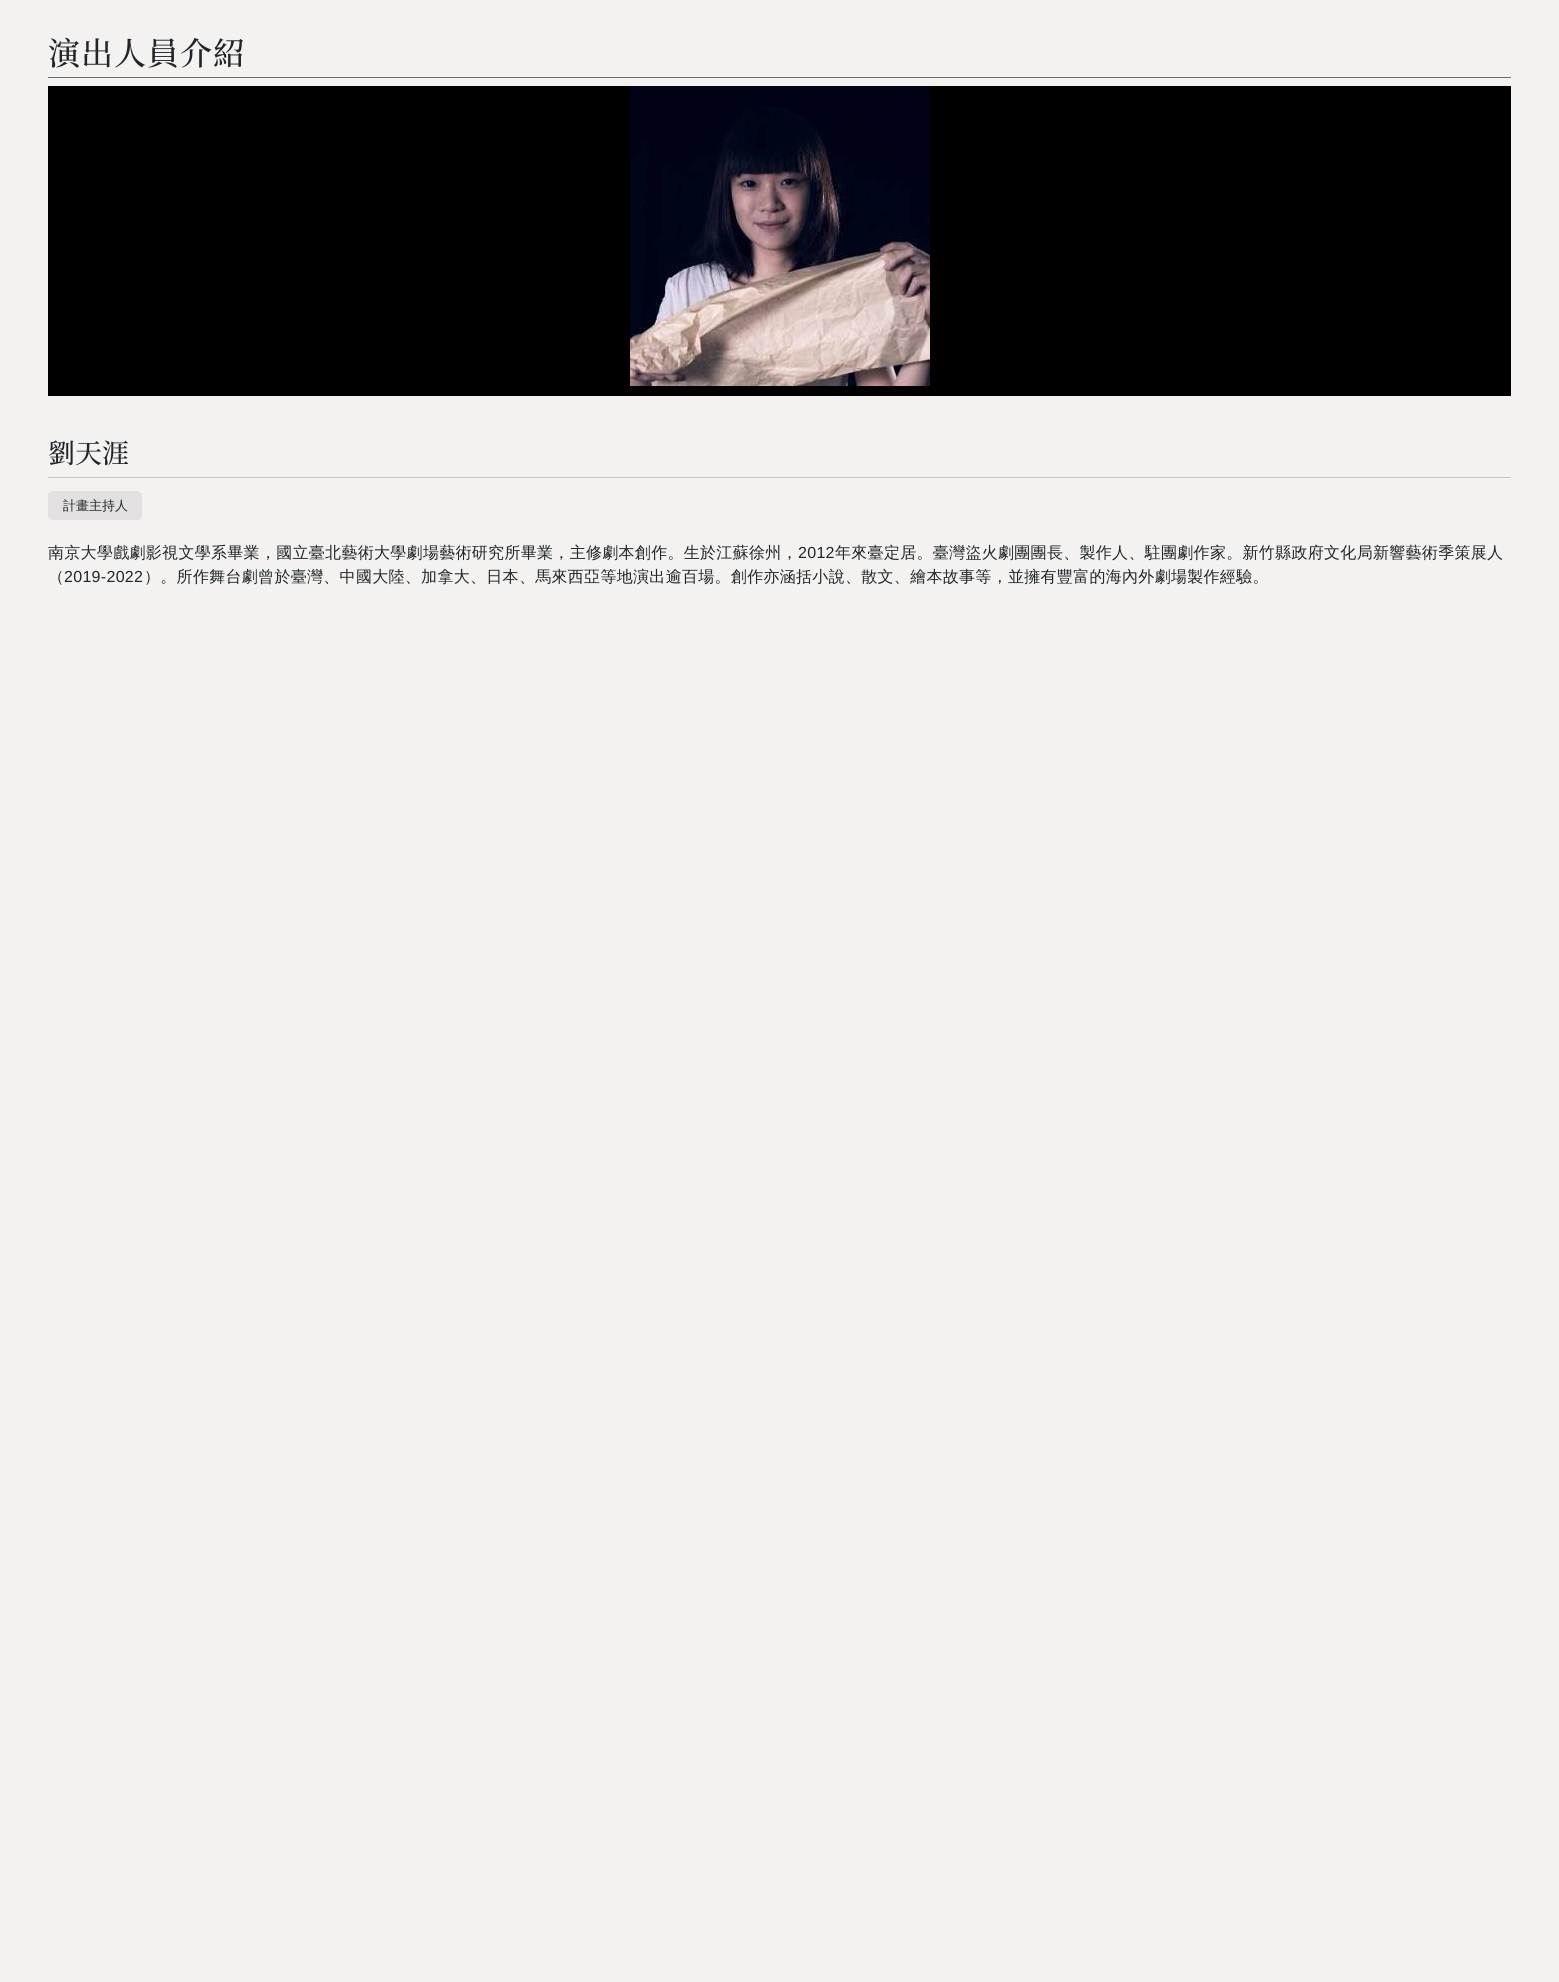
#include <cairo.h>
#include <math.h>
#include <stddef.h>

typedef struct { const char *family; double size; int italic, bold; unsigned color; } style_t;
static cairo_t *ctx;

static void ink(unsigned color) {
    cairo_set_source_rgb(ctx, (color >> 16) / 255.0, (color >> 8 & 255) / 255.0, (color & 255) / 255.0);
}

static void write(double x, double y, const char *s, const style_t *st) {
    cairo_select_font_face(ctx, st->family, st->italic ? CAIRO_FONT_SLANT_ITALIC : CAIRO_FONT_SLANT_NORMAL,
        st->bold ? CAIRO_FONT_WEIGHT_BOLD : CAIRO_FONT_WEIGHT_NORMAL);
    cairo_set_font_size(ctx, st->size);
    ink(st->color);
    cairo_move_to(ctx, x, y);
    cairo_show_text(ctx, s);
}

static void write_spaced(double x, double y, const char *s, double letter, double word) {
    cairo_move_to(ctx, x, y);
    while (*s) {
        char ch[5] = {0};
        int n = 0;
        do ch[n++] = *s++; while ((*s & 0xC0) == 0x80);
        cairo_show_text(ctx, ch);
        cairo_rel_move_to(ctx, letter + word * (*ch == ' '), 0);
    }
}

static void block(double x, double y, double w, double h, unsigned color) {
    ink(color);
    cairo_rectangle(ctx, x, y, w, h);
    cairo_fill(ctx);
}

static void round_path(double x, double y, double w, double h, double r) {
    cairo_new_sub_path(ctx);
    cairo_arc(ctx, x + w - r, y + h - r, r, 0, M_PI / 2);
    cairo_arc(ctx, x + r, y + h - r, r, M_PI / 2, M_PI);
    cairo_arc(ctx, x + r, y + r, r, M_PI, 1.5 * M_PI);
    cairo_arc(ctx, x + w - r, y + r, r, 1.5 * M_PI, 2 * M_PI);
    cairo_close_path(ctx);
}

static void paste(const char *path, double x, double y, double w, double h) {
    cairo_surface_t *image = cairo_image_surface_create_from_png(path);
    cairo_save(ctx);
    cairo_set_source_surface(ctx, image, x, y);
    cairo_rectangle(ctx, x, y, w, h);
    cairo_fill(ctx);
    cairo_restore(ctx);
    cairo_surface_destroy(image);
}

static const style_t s1 = {"Noto Serif TC Medium", 27, 0, 0, 0x212529};
static const style_t s2 = {"WenQuanYi Zen Hei Medium", 13, 0, 0, 0x212529};

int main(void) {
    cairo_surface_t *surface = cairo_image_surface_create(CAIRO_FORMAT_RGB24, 1559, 1982);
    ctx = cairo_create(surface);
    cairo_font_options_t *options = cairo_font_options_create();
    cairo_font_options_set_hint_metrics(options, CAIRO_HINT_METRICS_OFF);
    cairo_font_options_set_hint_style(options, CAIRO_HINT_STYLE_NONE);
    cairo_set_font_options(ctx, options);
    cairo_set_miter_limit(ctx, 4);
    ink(0xf3f2f0);
    cairo_paint(ctx);
    block(48, 77, 1463, 1, 0x696969);
    cairo_select_font_face(ctx, "Noto Serif TC Medium", CAIRO_FONT_SLANT_NORMAL, CAIRO_FONT_WEIGHT_NORMAL);
    cairo_set_font_size(ctx, 32);
    ink(0x212529);
    write_spaced(48, 65, "演出人員介紹", 1, 0);
    block(48, 86, 1463, 310, 0x000000);
    paste("pic1.png", 630, 86, 300, 300);
    block(48, 477, 1463, 1, 0xc7c7c7);
    write(48, 463, "劉天涯", &s1);
    ink(0xe2e0e0);
    round_path(48, 491, 94, 29, 5);
    cairo_fill(ctx);
    write(63, 510, "計畫主持人", &s2);
    cairo_set_font_size(ctx, 16);
    write_spaced(48, 558, "南京大學戲劇影視文學系畢業，國立臺北藝術大學劇場藝術研究所畢業，主修劇本創作。生於江蘇徐州，", 0.3, 0);
    cairo_select_font_face(ctx, "Liberation Sans", CAIRO_FONT_SLANT_NORMAL, CAIRO_FONT_WEIGHT_NORMAL);
    write_spaced(798, 558, "2012", 0.3, 0);
    cairo_select_font_face(ctx, "WenQuanYi Zen Hei Medium", CAIRO_FONT_SLANT_NORMAL, CAIRO_FONT_WEIGHT_NORMAL);
    write_spaced(835, 558, "年來臺定居。臺灣盜火劇團團長、製作人、駐團劇作家。新竹縣政府文化局新響藝術季策展人", 0.3, 0);
    write_spaced(48, 582, "（", 0.3, 0);
    cairo_select_font_face(ctx, "Liberation Sans", CAIRO_FONT_SLANT_NORMAL, CAIRO_FONT_WEIGHT_NORMAL);
    write_spaced(64, 582, "2019-2022", 0.3, 0);
    cairo_select_font_face(ctx, "WenQuanYi Zen Hei Medium", CAIRO_FONT_SLANT_NORMAL, CAIRO_FONT_WEIGHT_NORMAL);
    write_spaced(144, 582, "）。所作舞台劇曾於臺灣、中國大陸、加拿大、日本、馬來西亞等地演出逾百場。創作亦涵括小說、散文、繪本故事等，並擁有豐富的海內外劇場製作經驗。", 0.3, 0);
    cairo_surface_write_to_png(surface, "screenshot.png");
    cairo_font_options_destroy(options);
    cairo_destroy(ctx);
    cairo_surface_destroy(surface);
    return 0;
}
